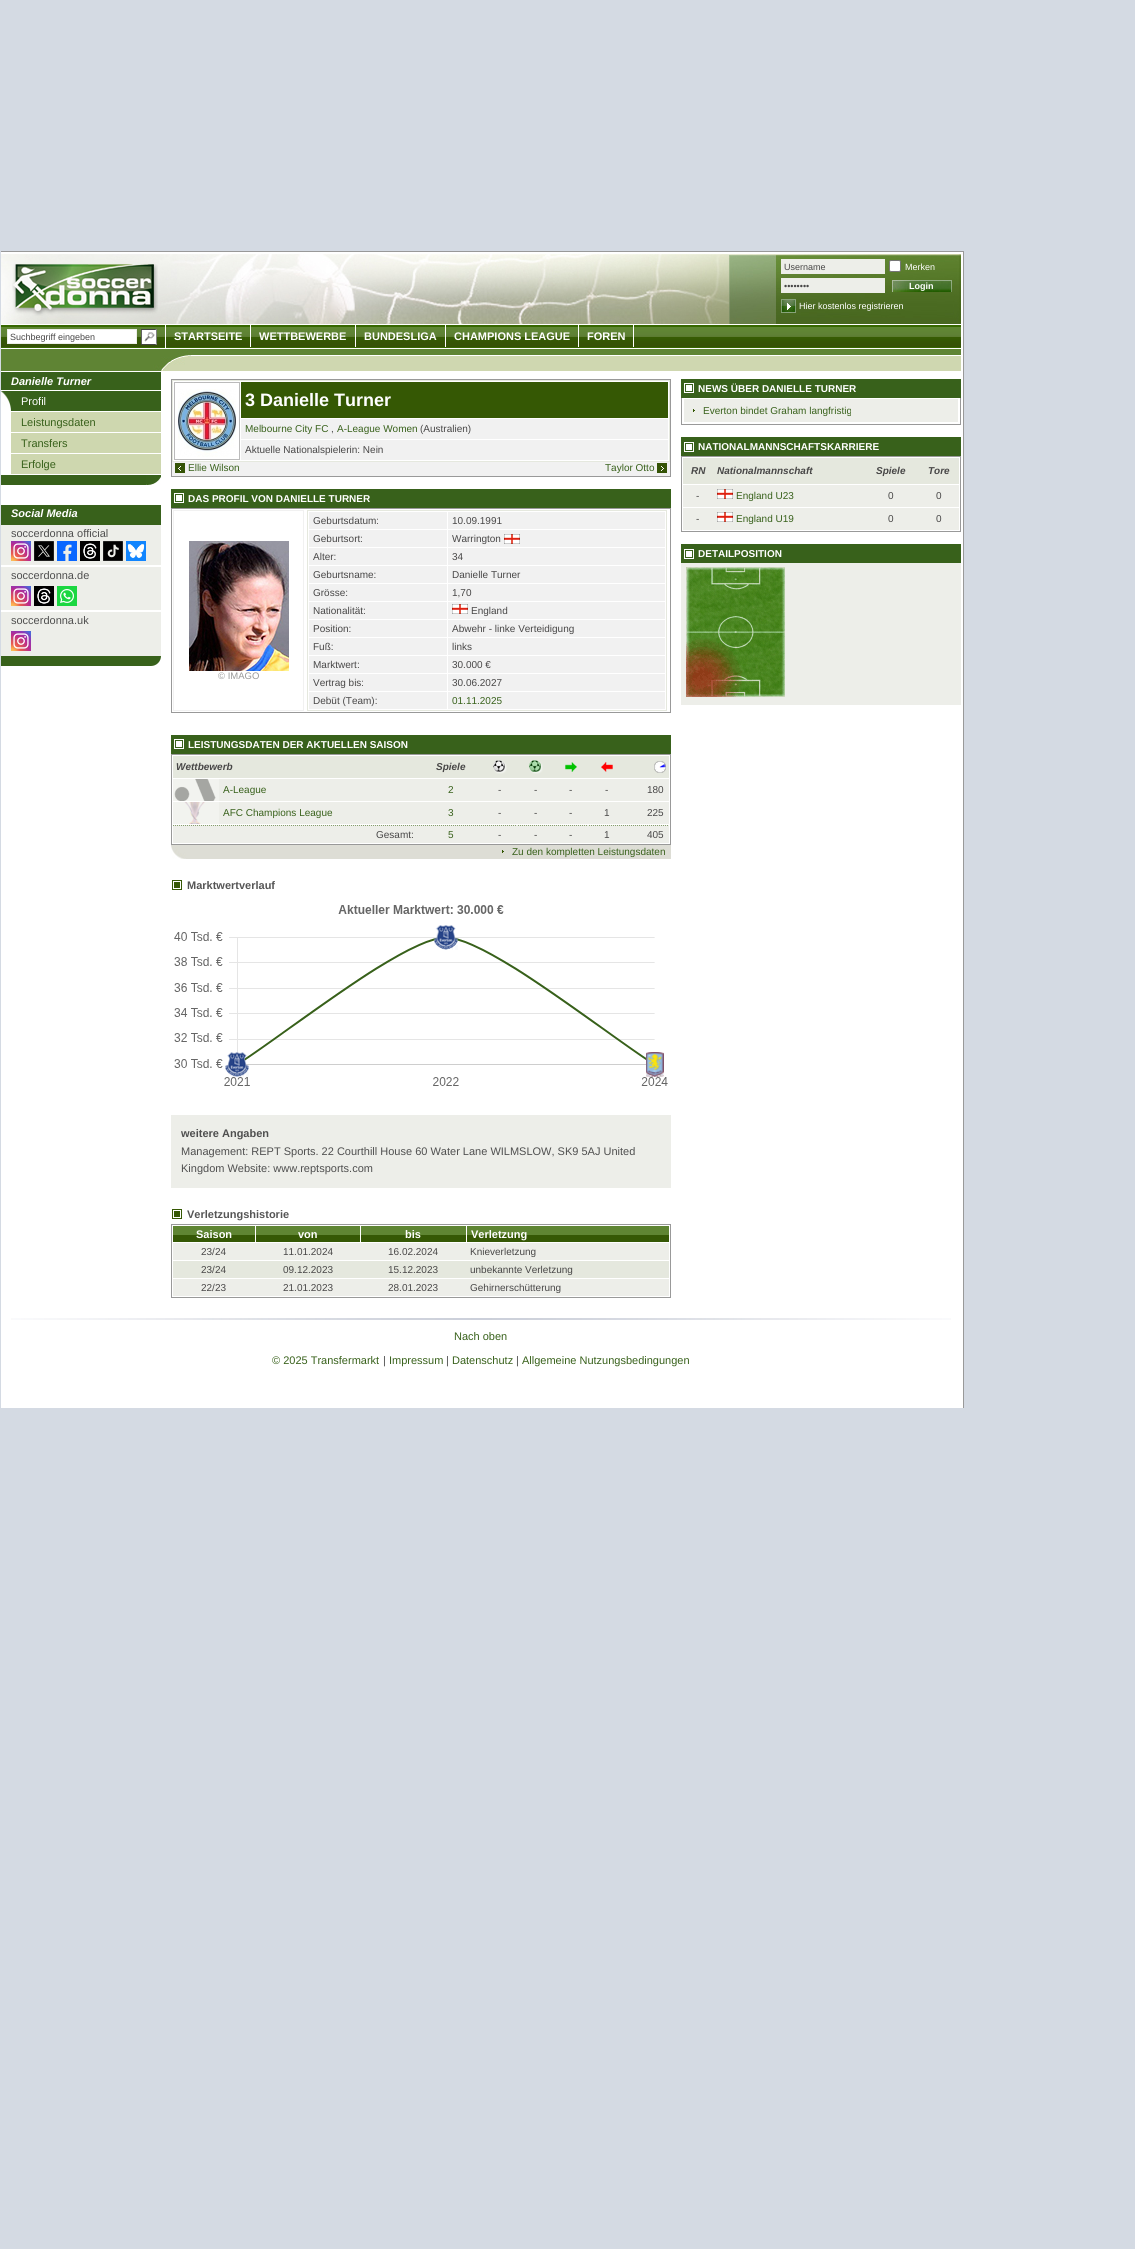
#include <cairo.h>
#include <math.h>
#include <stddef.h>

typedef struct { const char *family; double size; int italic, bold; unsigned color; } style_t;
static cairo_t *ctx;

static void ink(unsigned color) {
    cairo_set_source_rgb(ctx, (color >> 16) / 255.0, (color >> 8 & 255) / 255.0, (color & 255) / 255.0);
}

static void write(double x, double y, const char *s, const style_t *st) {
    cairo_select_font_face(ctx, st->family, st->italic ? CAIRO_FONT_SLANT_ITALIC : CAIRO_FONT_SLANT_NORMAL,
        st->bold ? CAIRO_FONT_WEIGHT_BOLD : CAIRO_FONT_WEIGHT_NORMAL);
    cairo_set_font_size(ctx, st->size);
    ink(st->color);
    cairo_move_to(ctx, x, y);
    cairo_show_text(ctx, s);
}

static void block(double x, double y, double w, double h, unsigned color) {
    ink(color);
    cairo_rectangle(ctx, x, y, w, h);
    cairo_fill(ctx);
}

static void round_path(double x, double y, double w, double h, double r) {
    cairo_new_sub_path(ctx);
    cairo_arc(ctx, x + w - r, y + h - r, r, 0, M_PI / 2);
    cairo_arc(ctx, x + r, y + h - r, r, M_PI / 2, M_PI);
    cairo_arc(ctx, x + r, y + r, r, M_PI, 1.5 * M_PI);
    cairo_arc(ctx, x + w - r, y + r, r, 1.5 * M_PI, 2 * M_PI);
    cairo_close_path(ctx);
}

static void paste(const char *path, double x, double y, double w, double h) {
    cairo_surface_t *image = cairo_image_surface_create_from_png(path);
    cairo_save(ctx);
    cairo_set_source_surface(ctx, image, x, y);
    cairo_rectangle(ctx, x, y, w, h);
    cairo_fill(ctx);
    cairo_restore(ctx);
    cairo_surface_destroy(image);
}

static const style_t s1 = {"Liberation Sans", 9, 0, 0, 0x484747};
static const style_t s2 = {"Liberation Sans", 9, 0, 0, 0xffffff};
static const style_t s3 = {"Liberation Sans", 9, 0, 1, 0xffffff};
static const style_t s4 = {"Liberation Sans", 11, 0, 1, 0xffffff};
static const style_t s5 = {"Liberation Sans", 11, 1, 1, 0xffffff};
static const style_t s6 = {"Liberation Sans", 11, 0, 0, 0xffffff};
static const style_t s7 = {"Liberation Sans", 11, 0, 0, 0x38611b};
static const style_t s8 = {"Liberation Sans", 11, 0, 0, 0x4f4f4f};
static const style_t s9 = {"Liberation Sans", 18, 0, 1, 0xffffff};
static const style_t s10 = {"Liberation Sans", 10, 0, 0, 0x38611b};
static const style_t s11 = {"Liberation Sans", 10, 0, 0, 0x484747};
static const style_t s12 = {"Liberation Sans", 10, 0, 1, 0xffffff};
static const style_t s13 = {"Liberation Sans", 9.5, 0, 0, 0x999999};
static const style_t s14 = {"Liberation Sans", 10, 1, 1, 0x484747};
static const style_t s15 = {"Liberation Sans", 11, 0, 1, 0x555555};
static const style_t s16 = {"Liberation Sans", 11, 0, 1, 0x4f4f4f};

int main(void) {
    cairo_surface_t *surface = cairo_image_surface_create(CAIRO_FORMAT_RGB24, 1135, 2249);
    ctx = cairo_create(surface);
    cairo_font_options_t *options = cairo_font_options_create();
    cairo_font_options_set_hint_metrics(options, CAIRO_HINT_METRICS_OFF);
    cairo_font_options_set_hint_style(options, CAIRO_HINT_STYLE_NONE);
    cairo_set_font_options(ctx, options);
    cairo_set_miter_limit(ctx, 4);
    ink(0xd4dae3);
    cairo_paint(ctx);
    block(1, 252, 962, 1156, 0xffffff);
    paste("pic1.png", 1, 254, 960, 70);
    paste("pic2.png", 12, 264, 146, 52);
    block(781, 259, 104, 15, 0xedeee9);
    write(784, 270, "Username", &s1);
    ink(0xffffff);
    round_path(889.5, 260.5, 11, 11, 1.5);
    cairo_fill_preserve(ctx);
    ink(0x767676);
    cairo_set_line_width(ctx, 1);
    cairo_stroke(ctx);
    write(905, 270, "Merken", &s2);
    block(781, 278, 104, 15, 0xedeee9);
    write(784, 289, "••••••••", &s1);
    paste("pic3.png", 892, 280, 60, 12);
    write(909, 289, "Login", &s3);
    paste("pic4.png", 781, 299, 15, 14);
    write(799, 309, "Hier kostenlos registrieren", &s2);
    paste("pic5.png", 1, 325, 960, 23);
    block(165, 325, 1, 23, 0xffffff);
    cairo_rectangle(ctx, 7.5, 329.5, 129, 14);
    cairo_fill_preserve(ctx);
    ink(0xedeee9);
    cairo_stroke(ctx);
    write(10, 340, "Suchbegriff eingeben", &s1);
    paste("pic6.png", 141, 329, 16, 16);
    block(250, 325, 1, 22, 0xffffff);
    write(174, 340, "STARTSEITE", &s4);
    block(355, 325, 1, 22, 0xffffff);
    write(259, 340, "WETTBEWERBE", &s4);
    block(445, 325, 1, 22, 0xffffff);
    write(364, 340, "BUNDESLIGA", &s4);
    block(578, 325, 1, 22, 0xffffff);
    write(454, 340, "CHAMPIONS LEAGUE", &s4);
    block(633, 325, 1, 22, 0xffffff);
    write(587, 340, "FOREN", &s4);
    paste("pic7.png", 1, 349, 960, 22);
    block(1, 251, 963, 1, 0x999999);
    block(963, 251, 1, 1157, 0x999999);
    block(1, 372, 160, 18, 0x38611b);
    write(11, 385, "Danielle Turner", &s5);
    block(11, 391, 150, 20, 0x38611b);
    paste("pic8.png", 1, 391, 10, 20);
    write(21, 405, "Profil", &s6);
    block(11, 412, 150, 20, 0xced7af);
    write(21, 426, "Leistungsdaten", &s7);
    block(11, 433, 150, 20, 0xced7af);
    write(21, 447, "Transfers", &s7);
    block(11, 454, 150, 20, 0xced7af);
    write(21, 468, "Erfolge", &s7);
    block(1, 475, 145, 10, 0x38611b);
    paste("pic9.png", 146, 475, 15, 10);
    block(1, 505, 160, 20, 0x38611b);
    write(11, 517, "Social Media", &s5);
    block(1, 525, 160, 40, 0xedeee9);
    write(11, 537, "soccerdonna official", &s8);
    paste("pic10.png", 11, 541, 20, 20);
    paste("pic11.png", 34, 541, 20, 20);
    paste("pic12.png", 57, 541, 20, 20);
    paste("pic13.png", 80, 541, 20, 20);
    paste("pic14.png", 103, 541, 20, 20);
    paste("pic15.png", 126, 541, 20, 20);
    block(1, 567, 160, 43, 0xedeee9);
    write(11, 579, "soccerdonna.de", &s8);
    paste("pic10.png", 11, 586, 20, 20);
    paste("pic16.png", 34, 586, 20, 20);
    paste("pic17.png", 57, 586, 20, 20);
    block(1, 612, 160, 44, 0xedeee9);
    write(11, 624, "soccerdonna.uk", &s8);
    paste("pic10.png", 11, 631, 20, 20);
    ink(0x38611b);
    cairo_new_path(ctx);
    cairo_move_to(ctx, 1, 656);
    cairo_line_to(ctx, 161, 656);
    cairo_curve_to(ctx, 161, 661.5, 156.5, 666, 151, 666);
    cairo_line_to(ctx, 1, 666);
    cairo_close_path(ctx);
    cairo_fill(ctx);
    block(172, 462, 498, 14, 0xf1f1f1);
    cairo_rectangle(ctx, 171.5, 379.5, 499, 97);
    ink(0x999999);
    cairo_stroke(ctx);
    cairo_rectangle(ctx, 172.5, 380.5, 497, 81);
    ink(0xe5e8de);
    cairo_stroke(ctx);
    cairo_rectangle(ctx, 174.5, 382.5, 65, 77);
    ink(0xbbbbbb);
    cairo_stroke(ctx);
    paste("pic18.png", 178, 389, 58, 68);
    block(241, 382, 427, 36, 0x355804);
    write(245, 406, "3 Danielle Turner", &s9);
    block(241, 419, 427, 20, 0xf1f1f1);
    write(245, 432, "Melbourne City FC", &s10);
    write(331, 432, ",", &s11);
    write(337, 432, "A-League Women", &s10);
    write(420, 432, "(Australien)", &s11);
    block(241, 440, 427, 20, 0xf1f1f1);
    write(245, 453, "Aktuelle Nationalspielerin: Nein", &s11);
    paste("pic19.png", 175, 463, 10, 10);
    write(188, 471, "Ellie Wilson", &s10);
    write(605, 471, "Taylor Otto", &s10);
    paste("pic20.png", 657, 463, 10, 10);
    block(171, 489, 500, 19, 0x38611b);
    paste("pic21.png", 174, 493, 10, 10);
    write(188, 502, "DAS PROFIL VON DANIELLE TURNER", &s12);
    cairo_rectangle(ctx, 171.5, 508.5, 499, 204);
    ink(0x999999);
    cairo_stroke(ctx);
    cairo_rectangle(ctx, 173.5, 510.5, 130, 200);
    ink(0xf1f1f1);
    cairo_stroke(ctx);
    paste("pic22.png", 189, 541, 100, 130);
    write(218, 679, "© IMAGO", &s13);
    cairo_rectangle(ctx, 307.5, 510.5, 359, 200);
    ink(0xe5e8de);
    cairo_stroke(ctx);
    block(309, 512, 138, 17, 0xf1f1f1);
    write(313, 524, "Geburtsdatum:", &s11);
    block(448, 512, 217, 17, 0xf1f1f1);
    write(452, 524, "10.09.1991", &s11);
    block(309, 530, 138, 17, 0xf1f1f1);
    write(313, 542, "Geburtsort:", &s11);
    block(448, 530, 217, 17, 0xf1f1f1);
    write(452, 542, "Warrington", &s11);
    paste("pic23.png", 504, 534, 16, 10);
    block(309, 548, 138, 17, 0xf1f1f1);
    write(313, 560, "Alter:", &s11);
    block(448, 548, 217, 17, 0xf1f1f1);
    write(452, 560, "34", &s11);
    block(309, 566, 138, 17, 0xf1f1f1);
    write(313, 578, "Geburtsname:", &s11);
    block(448, 566, 217, 17, 0xf1f1f1);
    write(452, 578, "Danielle Turner", &s11);
    block(309, 584, 138, 17, 0xf1f1f1);
    write(313, 596, "Grösse:", &s11);
    block(448, 584, 217, 17, 0xf1f1f1);
    write(452, 596, "1,70", &s11);
    block(309, 602, 138, 17, 0xf1f1f1);
    write(313, 614, "Nationalität:", &s11);
    block(448, 602, 217, 17, 0xf1f1f1);
    paste("pic23.png", 452, 604, 16, 10);
    write(471, 614, "England", &s11);
    block(309, 620, 138, 17, 0xf1f1f1);
    write(313, 632, "Position:", &s11);
    block(448, 620, 217, 17, 0xf1f1f1);
    write(452, 632, "Abwehr - linke Verteidigung", &s11);
    block(309, 638, 138, 17, 0xf1f1f1);
    write(313, 650, "Fuß:", &s11);
    block(448, 638, 217, 17, 0xf1f1f1);
    write(452, 650, "links", &s11);
    block(309, 656, 138, 17, 0xf1f1f1);
    write(313, 668, "Marktwert:", &s11);
    block(448, 656, 217, 17, 0xf1f1f1);
    write(452, 668, "30.000 €", &s11);
    block(309, 674, 138, 17, 0xf1f1f1);
    write(313, 686, "Vertrag bis:", &s11);
    block(448, 674, 217, 17, 0xf1f1f1);
    write(452, 686, "30.06.2027", &s11);
    block(309, 692, 138, 17, 0xf1f1f1);
    write(313, 704, "Debüt (Team):", &s11);
    block(448, 692, 217, 17, 0xf1f1f1);
    write(452, 704, "01.11.2025", &s10);
    block(681, 379, 280, 19, 0x38611b);
    paste("pic21.png", 684, 383, 10, 10);
    write(698, 392, "NEWS ÜBER DANIELLE TURNER", &s12);
    block(960, 398, 1, 27, 0x999999);
    block(681, 424, 280, 1, 0x999999);
    block(681, 398, 1, 27, 0x999999);
    block(684, 399, 274, 23, 0xedeee9);
    paste("pic24.png", 693, 409, 2, 3);
    write(703, 414, "Everton bindet Graham langfristig", &s10);
    block(681, 437, 280, 19, 0x38611b);
    paste("pic21.png", 684, 442, 10, 10);
    write(698, 450, "NATIONALMANNSCHAFTSKARRIERE", &s12);
    cairo_rectangle(ctx, 681.5, 456.5, 279, 75);
    ink(0x999999);
    cairo_stroke(ctx);
    block(683, 458, 276, 26, 0xe5e8de);
    write(691, 474, "RN", &s14);
    write(717, 474, "Nationalmannschaft", &s14);
    write(876, 474, "Spiele", &s14);
    write(928, 474, "Tore", &s14);
    block(683, 485, 276, 22, 0xedeee9);
    write(696, 499, "-", &s11);
    paste("pic23.png", 717, 489, 16, 10);
    write(736, 499, "England U23", &s10);
    write(888, 499, "0", &s11);
    write(936, 499, "0", &s11);
    block(683, 508, 276, 22, 0xedeee9);
    write(696, 522, "-", &s11);
    paste("pic23.png", 717, 512, 16, 10);
    write(736, 522, "England U19", &s10);
    write(888, 522, "0", &s11);
    write(936, 522, "0", &s11);
    block(681, 544, 280, 19, 0x38611b);
    paste("pic21.png", 684, 549, 10, 10);
    write(698, 557, "DETAILPOSITION", &s12);
    block(681, 563, 280, 142, 0xedeee9);
    paste("pic25.png", 686, 567, 99, 130);
    block(171, 735, 500, 19, 0x38611b);
    paste("pic21.png", 174, 739, 10, 10);
    write(188, 748, "LEISTUNGSDATEN DER AKTUELLEN SAISON", &s12);
    cairo_rectangle(ctx, 171.5, 754.5, 499, 90);
    ink(0x999999);
    cairo_stroke(ctx);
    block(173, 756, 496, 22, 0xe5e8de);
    write(176, 770, "Wettbewerb", &s14);
    write(436, 770, "Spiele", &s14);
    paste("pic26.png", 493, 760, 14, 14);
    paste("pic27.png", 529, 760, 14, 14);
    paste("pic28.png", 565, 762, 12, 10);
    paste("pic29.png", 601, 762, 12, 10);
    paste("pic30.png", 654, 761, 12, 12);
    block(219, 779, 450, 22, 0xedeee9);
    paste("pic31.png", 173, 779, 46, 22);
    write(223, 793, "A-League", &s10);
    write(448, 793, "2", &s10);
    write(498, 793, "-", &s11);
    write(534, 793, "-", &s11);
    write(569, 793, "-", &s11);
    write(605, 793, "-", &s11);
    write(647, 793, "180", &s11);
    block(219, 802, 450, 22, 0xedeee9);
    paste("pic32.png", 173, 802, 46, 22);
    write(223, 816, "AFC Champions League", &s10);
    write(448, 816, "3", &s10);
    write(498, 816, "-", &s11);
    write(534, 816, "-", &s11);
    write(569, 816, "-", &s11);
    write(604, 816, "1", &s11);
    write(647, 816, "225", &s11);
    block(173, 825, 496, 18, 0xedeee9);
    cairo_new_path(ctx);
    cairo_move_to(ctx, 173, 825.5);
    cairo_line_to(ctx, 420, 825.5);
    ink(0x869e6c);
    cairo_set_dash(ctx, (double[]){1, 1}, 2, 0);
    cairo_stroke(ctx);
    write(376, 838, "Gesamt:", &s11);
    cairo_new_path(ctx);
    cairo_move_to(ctx, 421, 825.5);
    cairo_line_to(ctx, 482, 825.5);
    ink(0x869e6c);
    cairo_stroke(ctx);
    write(448, 838, "5", &s10);
    cairo_new_path(ctx);
    cairo_move_to(ctx, 483, 825.5);
    cairo_line_to(ctx, 517, 825.5);
    ink(0x869e6c);
    cairo_stroke(ctx);
    write(498, 838, "-", &s11);
    cairo_new_path(ctx);
    cairo_move_to(ctx, 518, 825.5);
    cairo_line_to(ctx, 553, 825.5);
    ink(0x869e6c);
    cairo_stroke(ctx);
    write(534, 838, "-", &s11);
    cairo_new_path(ctx);
    cairo_move_to(ctx, 554, 825.5);
    cairo_line_to(ctx, 588, 825.5);
    ink(0x869e6c);
    cairo_stroke(ctx);
    write(569, 838, "-", &s11);
    cairo_new_path(ctx);
    cairo_move_to(ctx, 589, 825.5);
    cairo_line_to(ctx, 624, 825.5);
    ink(0x869e6c);
    cairo_stroke(ctx);
    write(604, 838, "1", &s11);
    cairo_new_path(ctx);
    cairo_move_to(ctx, 625, 825.5);
    cairo_line_to(ctx, 669, 825.5);
    ink(0x869e6c);
    cairo_stroke(ctx);
    write(647, 838, "405", &s11);
    block(171, 845, 500, 14, 0xddddd5);
    paste("pic33.png", 171, 846, 15, 13);
    paste("pic34.png", 502, 850, 2, 3);
    write(512, 855, "Zu den kompletten Leistungsdaten", &s10);
    paste("pic35.png", 172, 880, 10, 10);
    write(187, 889, "Marktwertverlauf", &s15);
    paste("pic36.png", 174, 905, 494, 181);
    block(171, 1115, 500, 73, 0xedeee9);
    write(181, 1137, "weitere Angaben", &s16);
    write(181, 1155, "Management: REPT Sports. 22 Courthill House 60 Water Lane WILMSLOW, SK9 5AJ United", &s8);
    write(181, 1172, "Kingdom Website: www.reptsports.com", &s8);
    paste("pic35.png", 172, 1209, 10, 10);
    write(187, 1218, "Verletzungshistorie", &s15);
    cairo_rectangle(ctx, 171.5, 1224.5, 499, 73);
    ink(0x999999);
    cairo_set_dash(ctx, NULL, 0, 0);
    cairo_stroke(ctx);
    paste("pic37.png", 173, 1226, 82, 16);
    write(196, 1238, "Saison", &s4);
    paste("pic38.png", 256, 1226, 104, 16);
    write(298, 1238, "von", &s4);
    paste("pic39.png", 361, 1226, 105, 16);
    write(405, 1238, "bis", &s4);
    paste("pic40.png", 467, 1226, 202, 16);
    write(471, 1238, "Verletzung", &s4);
    block(173, 1243, 496, 17, 0xedeee9);
    write(201, 1255, "23/24", &s11);
    write(283, 1255, "11.01.2024", &s11);
    write(388, 1255, "16.02.2024", &s11);
    write(470, 1255, "Knieverletzung", &s11);
    block(173, 1261, 496, 17, 0xe5e8de);
    write(201, 1273, "23/24", &s11);
    write(283, 1273, "09.12.2023", &s11);
    write(388, 1273, "15.12.2023", &s11);
    write(470, 1273, "unbekannte Verletzung", &s11);
    block(173, 1279, 496, 17, 0xedeee9);
    write(201, 1291, "22/23", &s11);
    write(283, 1291, "21.01.2023", &s11);
    write(388, 1291, "28.01.2023", &s11);
    write(470, 1291, "Gehirnerschütterung", &s11);
    paste("pic41.png", 11, 1318, 940, 2);
    write(454, 1340, "Nach oben", &s7);
    write(272, 1364, "© 2025 Transfermarkt", &s7);
    write(383, 1364, "|", &s8);
    write(389, 1364, "Impressum", &s7);
    write(446, 1364, "|", &s8);
    write(452, 1364, "Datenschutz", &s7);
    write(516, 1364, "|", &s8);
    write(522, 1364, "Allgemeine Nutzungsbedingungen", &s7);
    cairo_surface_write_to_png(surface, "screenshot.png");
    cairo_font_options_destroy(options);
    cairo_destroy(ctx);
    cairo_surface_destroy(surface);
    return 0;
}
